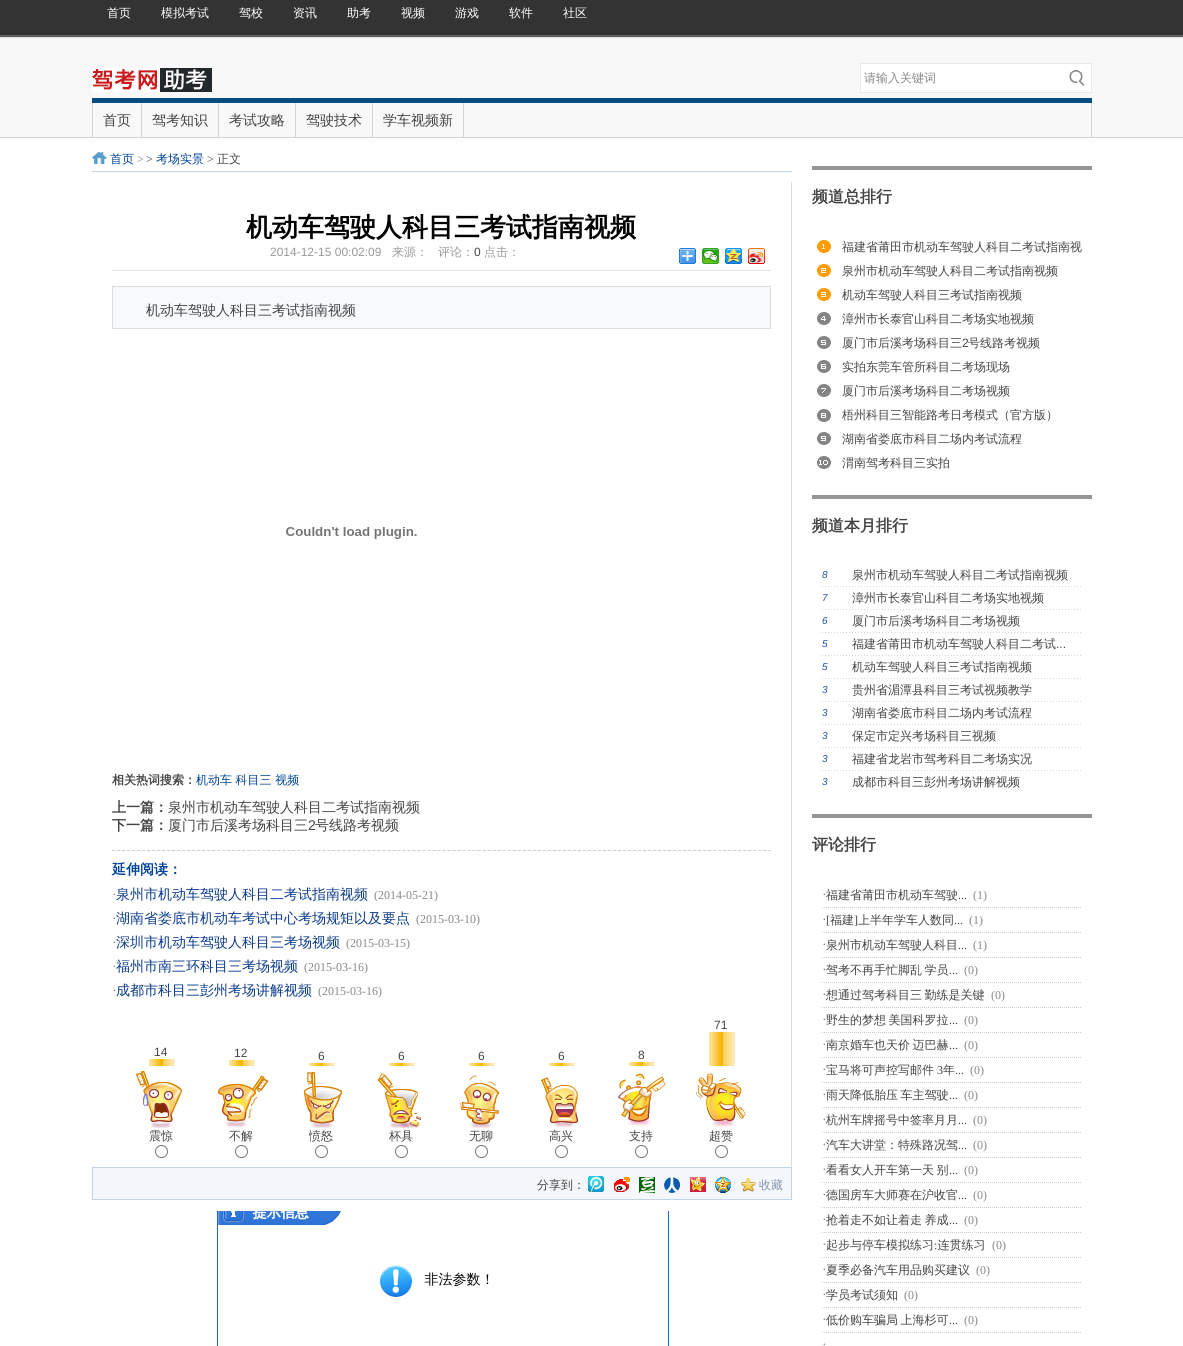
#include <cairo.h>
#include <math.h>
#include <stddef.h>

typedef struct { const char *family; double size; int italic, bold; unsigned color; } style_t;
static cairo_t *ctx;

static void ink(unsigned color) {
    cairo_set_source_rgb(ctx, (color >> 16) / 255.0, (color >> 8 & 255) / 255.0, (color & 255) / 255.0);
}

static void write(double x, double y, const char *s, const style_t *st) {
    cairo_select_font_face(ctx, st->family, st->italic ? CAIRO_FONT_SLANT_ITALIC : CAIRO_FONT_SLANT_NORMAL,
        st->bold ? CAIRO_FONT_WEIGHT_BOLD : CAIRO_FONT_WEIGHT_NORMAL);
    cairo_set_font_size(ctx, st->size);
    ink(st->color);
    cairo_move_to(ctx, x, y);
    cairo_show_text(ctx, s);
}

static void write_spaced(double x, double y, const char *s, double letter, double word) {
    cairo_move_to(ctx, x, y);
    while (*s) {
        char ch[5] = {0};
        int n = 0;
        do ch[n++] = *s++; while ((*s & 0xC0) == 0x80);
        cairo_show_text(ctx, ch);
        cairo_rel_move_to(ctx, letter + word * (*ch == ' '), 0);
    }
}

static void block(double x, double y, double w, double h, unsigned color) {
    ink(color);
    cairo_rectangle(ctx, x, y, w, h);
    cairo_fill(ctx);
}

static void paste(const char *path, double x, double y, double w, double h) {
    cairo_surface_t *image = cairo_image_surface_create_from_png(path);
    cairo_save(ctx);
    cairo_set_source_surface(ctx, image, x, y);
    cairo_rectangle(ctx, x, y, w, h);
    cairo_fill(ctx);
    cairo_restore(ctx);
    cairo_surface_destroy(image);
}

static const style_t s1 = {"WenQuanYi Zen Hei Medium", 12, 0, 0, 0xffffff};
static const style_t s2 = {"WenQuanYi Zen Hei Medium", 12, 0, 0, 0x888888};
static const style_t s3 = {"WenQuanYi Zen Hei Medium", 14, 0, 0, 0x444444};
static const style_t s4 = {"WenQuanYi Zen Hei Medium", 12, 0, 0, 0x004499};
static const style_t s5 = {"Liberation Serif", 12, 0, 0, 0x7e7e7e};
static const style_t s6 = {"Liberation Serif", 12, 0, 0, 0x444444};
static const style_t s7 = {"WenQuanYi Zen Hei Medium", 12, 0, 0, 0x444444};
static const style_t s8 = {"WenQuanYi Zen Hei", 26, 0, 1, 0x000000};
static const style_t s9 = {"Liberation Sans", 12, 0, 0, 0x999999};
static const style_t s10 = {"WenQuanYi Zen Hei Medium", 12, 0, 0, 0x999999};
static const style_t s11 = {"Liberation Sans", 12, 0, 0, 0x444444};
static const style_t s12 = {"WenQuanYi Zen Hei", 12, 0, 1, 0x444444};
static const style_t s13 = {"WenQuanYi Zen Hei", 14, 0, 1, 0x444444};
static const style_t s14 = {"Liberation Sans", 14, 0, 0, 0x444444};
static const style_t s15 = {"WenQuanYi Zen Hei", 14, 0, 1, 0x004499};
static const style_t s16 = {"Liberation Serif", 14, 0, 0, 0x888888};
static const style_t s17 = {"WenQuanYi Zen Hei Medium", 14, 0, 0, 0x0b3b8c};
static const style_t s18 = {"Liberation Serif", 12, 0, 0, 0x888888};
static const style_t s19 = {"WenQuanYi Zen Hei Medium", 12, 0, 0, 0x8896b1};
static const style_t s20 = {"WenQuanYi Zen Hei", 16, 0, 1, 0x444444};
static const style_t s21 = {"Liberation Sans", 10, 1, 0, 0x1e50a2};

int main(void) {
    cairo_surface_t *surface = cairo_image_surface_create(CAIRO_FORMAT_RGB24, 1183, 1346);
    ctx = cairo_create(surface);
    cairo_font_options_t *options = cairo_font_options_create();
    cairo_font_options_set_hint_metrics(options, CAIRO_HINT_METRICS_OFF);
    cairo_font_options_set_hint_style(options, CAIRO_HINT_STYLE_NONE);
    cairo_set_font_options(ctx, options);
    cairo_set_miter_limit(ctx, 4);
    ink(0xffffff);
    cairo_paint(ctx);
    block(0, 0, 1183, 35, 0x333333);
    block(0, 35, 1183, 2, 0x606060);
    write(107, 17, "首页", &s1);
    write(161, 17, "模拟考试", &s1);
    write(239, 17, "驾校", &s1);
    write(293, 17, "资讯", &s1);
    write(347, 17, "助考", &s1);
    write(401, 17, "视频", &s1);
    write(455, 17, "游戏", &s1);
    write(509, 17, "软件", &s1);
    write(563, 17, "社区", &s1);
    block(0, 38, 1183, 99, 0xf8f8f8);
    block(0, 137, 1183, 1, 0xd4d4d4);
    block(0, 37, 1183, 1, 0xdddddd);
    paste("pic1.png", 92, 68, 120, 24);
    ink(0xffffff);
    cairo_rectangle(ctx, 860.5, 63.5, 231, 29);
    cairo_fill_preserve(ctx);
    ink(0xe8e8e8);
    cairo_set_line_width(ctx, 1);
    cairo_stroke(ctx);
    write(864, 82, "请输入关键词", &s2);
    paste("pic2.png", 1069, 70, 16, 16);
    block(92, 98, 1000, 5, 0x044c82);
    block(1091, 103, 1, 35, 0xd4d4d4);
    block(92, 103, 1, 35, 0xd4d4d4);
    block(141, 103, 1, 35, 0xd4d4d4);
    write(103, 125, "首页", &s3);
    block(218, 103, 1, 35, 0xd4d4d4);
    write(152, 125, "驾考知识", &s3);
    block(295, 103, 1, 35, 0xd4d4d4);
    write(229, 125, "考试攻略", &s3);
    block(372, 103, 1, 35, 0xd4d4d4);
    write(306, 125, "驾驶技术", &s3);
    block(463, 103, 1, 35, 0xd4d4d4);
    write(383, 125, "学车视频新", &s3);
    paste("pic3.png", 92, 152, 15, 12);
    block(92, 171, 700, 1, 0xc3d4e7);
    write(110, 163, "首页", &s4);
    write(137, 163, ">", &s5);
    write(146, 163, ">", &s6);
    write(156, 163, "考场实景", &s4);
    write(207, 163, ">", &s6);
    write(217, 163, "正文", &s7);
    block(791, 182, 1, 986, 0xdddddd);
    block(112, 270, 659, 1, 0xe5e5e5);
    write(246, 236, "机动车驾驶人科目三考试指南视频", &s8);
    write(270, 256, "2014-12-15 00:02:09", &s9);
    write(392, 256, "来源：", &s10);
    write(438, 256, "评论：", &s10);
    write(474, 256, "0", &s11);
    write(484, 256, "点击：", &s10);
    paste("pic4.png", 679, 248, 17, 16);
    paste("pic5.png", 702, 248, 17, 16);
    paste("pic6.png", 725, 248, 17, 16);
    paste("pic7.png", 748, 248, 17, 16);
    ink(0xf6fafd);
    cairo_rectangle(ctx, 112.5, 286.5, 658, 42);
    cairo_fill_preserve(ctx);
    ink(0xdcdddd);
    cairo_stroke(ctx);
    write(146, 315, "机动车驾驶人科目三考试指南视频", &s3);
    paste("pic8.png", 286, 527, 131, 12);
    write(112, 784, "相关热词搜索：", &s12);
    write(196, 784, "机动车 科目三 视频", &s4);
    write(112, 812, "上一篇：", &s13);
    write(168, 812, "泉州市机动车驾驶人科目二考试指南视频", &s3);
    write(112, 830, "下一篇：", &s13);
    write(168, 830, "厦门市后溪考场科目三", &s3);
    write(308, 830, "2", &s14);
    write(315, 830, "号线路考视频", &s3);
    cairo_new_path(ctx);
    cairo_move_to(ctx, 112, 850.5);
    cairo_line_to(ctx, 771, 850.5);
    ink(0xcccccc);
    cairo_set_dash(ctx, (double[]){3, 2.01}, 2, 0);
    cairo_stroke(ctx);
    write(112, 874, "延伸阅读：", &s15);
    write(112, 899, "·", &s16);
    write(116, 899, "泉州市机动车驾驶人科目二考试指南视频", &s17);
    write(374, 899, "(2014-05-21)", &s18);
    write(112, 923, "·", &s16);
    write(116, 923, "湖南省娄底市机动车考试中心考场规矩以及要点", &s17);
    write(416, 923, "(2015-03-10)", &s18);
    write(112, 947, "·", &s16);
    write(116, 947, "深圳市机动车驾驶人科目三考场视频", &s17);
    write(346, 947, "(2015-03-15)", &s18);
    write(112, 971, "·", &s16);
    write(116, 971, "福州市南三环科目三考场视频", &s17);
    write(304, 971, "(2015-03-16)", &s18);
    write(112, 995, "·", &s16);
    write(116, 995, "成都市科目三彭州考场讲解视频", &s17);
    write(318, 995, "(2015-03-16)", &s18);
    write(154, 1056, "14", &s11);
    paste("pic9.png", 149, 1059, 26, 7);
    paste("pic10.png", 135, 1071, 47, 57);
    write(149, 1140, "震惊", &s7);
    cairo_new_path(ctx);
    cairo_arc(ctx, 161.5, 1151.5, 6, 0, 2 * M_PI);
    ink(0x767676);
    cairo_set_dash(ctx, NULL, 0, 0);
    cairo_stroke(ctx);
    write(234, 1057, "12", &s11);
    paste("pic11.png", 229, 1060, 26, 6);
    paste("pic12.png", 218, 1075, 51, 53);
    write(229, 1140, "不解", &s7);
    cairo_new_path(ctx);
    cairo_arc(ctx, 241.5, 1151.5, 6, 0, 2 * M_PI);
    ink(0x767676);
    cairo_stroke(ctx);
    write(318, 1060, "6", &s11);
    paste("pic13.png", 309, 1063, 26, 3);
    paste("pic14.png", 304, 1072, 38, 56);
    write(309, 1140, "愤怒", &s7);
    cairo_new_path(ctx);
    cairo_arc(ctx, 321.5, 1151.5, 6, 0, 2 * M_PI);
    ink(0x767676);
    cairo_stroke(ctx);
    write(398, 1060, "6", &s11);
    paste("pic13.png", 389, 1063, 26, 3);
    paste("pic15.png", 377, 1073, 44, 55);
    write(389, 1140, "杯具", &s7);
    cairo_new_path(ctx);
    cairo_arc(ctx, 401.5, 1151.5, 6, 0, 2 * M_PI);
    ink(0x767676);
    cairo_stroke(ctx);
    write(478, 1060, "6", &s11);
    paste("pic13.png", 469, 1063, 26, 3);
    paste("pic16.png", 459, 1075, 40, 53);
    write(469, 1140, "无聊", &s7);
    cairo_new_path(ctx);
    cairo_arc(ctx, 481.5, 1151.5, 6, 0, 2 * M_PI);
    ink(0x767676);
    cairo_stroke(ctx);
    write(558, 1060, "6", &s11);
    paste("pic13.png", 549, 1063, 26, 3);
    paste("pic17.png", 541, 1077, 37, 51);
    write(549, 1140, "高兴", &s7);
    cairo_new_path(ctx);
    cairo_arc(ctx, 561.5, 1151.5, 6, 0, 2 * M_PI);
    ink(0x767676);
    cairo_stroke(ctx);
    write(638, 1059, "8", &s11);
    paste("pic18.png", 629, 1062, 26, 4);
    paste("pic19.png", 617, 1073, 49, 54);
    write(629, 1140, "支持", &s7);
    cairo_new_path(ctx);
    cairo_arc(ctx, 641.5, 1151.5, 6, 0, 2 * M_PI);
    ink(0x767676);
    cairo_stroke(ctx);
    write(714, 1029, "71", &s11);
    paste("pic20.png", 709, 1032, 26, 34);
    paste("pic21.png", 696, 1073, 50, 55);
    write(709, 1140, "超赞", &s7);
    cairo_new_path(ctx);
    cairo_arc(ctx, 721.5, 1151.5, 6, 0, 2 * M_PI);
    ink(0x767676);
    cairo_stroke(ctx);
    ink(0xf4f8fd);
    cairo_rectangle(ctx, 92.5, 1167.5, 699, 32);
    cairo_fill_preserve(ctx);
    ink(0xc3d4e7);
    cairo_stroke(ctx);
    write(537, 1189, "分享到：", &s7);
    paste("pic22.png", 588, 1176, 16, 16);
    paste("pic23.png", 614, 1177, 16, 15);
    paste("pic24.png", 639, 1177, 16, 16);
    paste("pic25.png", 664, 1177, 16, 16);
    paste("pic26.png", 690, 1177, 16, 15);
    paste("pic27.png", 715, 1177, 16, 16);
    paste("pic28.png", 741, 1177, 16, 15);
    write(759, 1189, "收藏", &s19);
    paste("pic29.png", 217, 1211, 452, 135);
    block(812, 166, 280, 4, 0x959595);
    cairo_save(ctx);
    cairo_rectangle(ctx, 812, 170, 280, 55);
    cairo_clip(ctx);
    write(812, 202, "频道总排行", &s20);
    cairo_restore(ctx);
    paste("pic30.png", 817, 240, 14, 229);
    write(842, 251, "福建省莆田市机动车驾驶人科目二考试指南视", &s7);
    write(842, 275, "泉州市机动车驾驶人科目二考试指南视频", &s7);
    write(842, 299, "机动车驾驶人科目三考试指南视频", &s7);
    write(842, 323, "漳州市长泰官山科目二考场实地视频", &s7);
    write(842, 347, "厦门市后溪考场科目三", &s7);
    write(962, 347, "2", &s11);
    write(968, 347, "号线路考视频", &s7);
    write(842, 371, "实拍东莞车管所科目二考场现场", &s7);
    write(842, 395, "厦门市后溪考场科目二考场视频", &s7);
    cairo_save(ctx);
    cairo_rectangle(ctx, 842, 403, 240, 24);
    cairo_clip(ctx);
    write(842, 419, "梧州科目三智能路考日考模式（官方版）", &s7);
    cairo_restore(ctx);
    write(842, 443, "湖南省娄底市科目二场内考试流程", &s7);
    write(842, 467, "渭南驾考科目三实拍", &s7);
    block(812, 495, 280, 4, 0x959595);
    cairo_save(ctx);
    cairo_rectangle(ctx, 812, 499, 280, 55);
    cairo_clip(ctx);
    write(812, 531, "频道本月排行", &s20);
    cairo_restore(ctx);
    write(822, 578, "8", &s21);
    write(852, 579, "泉州市机动车驾驶人科目二考试指南视频", &s7);
    paste("pic31.png", 822, 586, 259, 1);
    write(822, 601, "7", &s21);
    write(852, 602, "漳州市长泰官山科目二考场实地视频", &s7);
    paste("pic31.png", 822, 609, 259, 1);
    write(822, 624, "6", &s21);
    write(852, 625, "厦门市后溪考场科目二考场视频", &s7);
    paste("pic31.png", 822, 632, 259, 1);
    write(822, 647, "5", &s21);
    write(852, 648, "福建省莆田市机动车驾驶人科目二考试", &s7);
    write(1056, 648, "...", &s11);
    paste("pic31.png", 822, 655, 259, 1);
    write(822, 670, "5", &s21);
    write(852, 671, "机动车驾驶人科目三考试指南视频", &s7);
    paste("pic31.png", 822, 678, 259, 1);
    write(822, 693, "3", &s21);
    write(852, 694, "贵州省湄潭县科目三考试视频教学", &s7);
    paste("pic31.png", 822, 701, 259, 1);
    write(822, 716, "3", &s21);
    write(852, 717, "湖南省娄底市科目二场内考试流程", &s7);
    paste("pic31.png", 822, 724, 259, 1);
    write(822, 739, "3", &s21);
    write(852, 740, "保定市定兴考场科目三视频", &s7);
    paste("pic31.png", 822, 747, 259, 1);
    write(822, 762, "3", &s21);
    write(852, 763, "福建省龙岩市驾考科目二考场实况", &s7);
    paste("pic31.png", 822, 770, 259, 1);
    write(822, 785, "3", &s21);
    write(852, 786, "成都市科目三彭州考场讲解视频", &s7);
    block(812, 814, 280, 4, 0x959595);
    write(812, 850, "评论排行", &s20);
    cairo_new_path(ctx);
    cairo_move_to(ctx, 822, 907.5);
    cairo_line_to(ctx, 1082, 907.5);
    ink(0xcccccc);
    cairo_set_dash(ctx, (double[]){1, 1}, 2, 0);
    cairo_stroke(ctx);
    write(822, 899, "·", &s16);
    write(826, 899, "福建省莆田市机动车驾驶", &s7);
    write(973, 899, "(1)", &s18);
    write(958, 899, "...", &s6);
    cairo_new_path(ctx);
    cairo_move_to(ctx, 822, 932.5);
    cairo_line_to(ctx, 1082, 932.5);
    ink(0xcccccc);
    cairo_stroke(ctx);
    write(822, 924, "·", &s16);
    write(826, 924, "[", &s6);
    write(830, 924, "福建", &s7);
    write(854, 924, "]", &s6);
    write(858, 924, "上半年学车人数同", &s7);
    write(969, 924, "(1)", &s18);
    write(954, 924, "...", &s6);
    cairo_new_path(ctx);
    cairo_move_to(ctx, 822, 957.5);
    cairo_line_to(ctx, 1082, 957.5);
    ink(0xcccccc);
    cairo_stroke(ctx);
    write(822, 949, "·", &s16);
    write(826, 949, "泉州市机动车驾驶人科目", &s7);
    write(973, 949, "(1)", &s18);
    write(958, 949, "...", &s6);
    cairo_new_path(ctx);
    cairo_move_to(ctx, 822, 982.5);
    cairo_line_to(ctx, 1082, 982.5);
    ink(0xcccccc);
    cairo_stroke(ctx);
    write(822, 974, "·", &s16);
    cairo_select_font_face(ctx, "WenQuanYi Zen Hei Medium", CAIRO_FONT_SLANT_NORMAL, CAIRO_FONT_WEIGHT_NORMAL);
    cairo_set_font_size(ctx, 12);
    ink(0x444444);
    write_spaced(826, 974, "驾考不再手忙脚乱 学员", 0, -1);
    write(964, 974, "(0)", &s18);
    write(949, 974, "...", &s6);
    cairo_new_path(ctx);
    cairo_move_to(ctx, 822, 1007.5);
    cairo_line_to(ctx, 1082, 1007.5);
    ink(0xcccccc);
    cairo_stroke(ctx);
    write(822, 999, "·", &s16);
    cairo_select_font_face(ctx, "WenQuanYi Zen Hei Medium", CAIRO_FONT_SLANT_NORMAL, CAIRO_FONT_WEIGHT_NORMAL);
    cairo_set_font_size(ctx, 12);
    ink(0x444444);
    write_spaced(826, 999, "想通过驾考科目三 勤练是关键", 0, -1);
    write(991, 999, "(0)", &s18);
    cairo_new_path(ctx);
    cairo_move_to(ctx, 822, 1032.5);
    cairo_line_to(ctx, 1082, 1032.5);
    ink(0xcccccc);
    cairo_stroke(ctx);
    write(822, 1024, "·", &s16);
    cairo_select_font_face(ctx, "WenQuanYi Zen Hei Medium", CAIRO_FONT_SLANT_NORMAL, CAIRO_FONT_WEIGHT_NORMAL);
    cairo_set_font_size(ctx, 12);
    ink(0x444444);
    write_spaced(826, 1024, "野生的梦想 美国科罗拉", 0, -1);
    write(964, 1024, "(0)", &s18);
    write(949, 1024, "...", &s6);
    cairo_new_path(ctx);
    cairo_move_to(ctx, 822, 1057.5);
    cairo_line_to(ctx, 1082, 1057.5);
    ink(0xcccccc);
    cairo_stroke(ctx);
    write(822, 1049, "·", &s16);
    cairo_select_font_face(ctx, "WenQuanYi Zen Hei Medium", CAIRO_FONT_SLANT_NORMAL, CAIRO_FONT_WEIGHT_NORMAL);
    cairo_set_font_size(ctx, 12);
    ink(0x444444);
    write_spaced(826, 1049, "南京婚车也天价 迈巴赫", 0, -1);
    write(964, 1049, "(0)", &s18);
    write(949, 1049, "...", &s6);
    cairo_new_path(ctx);
    cairo_move_to(ctx, 822, 1082.5);
    cairo_line_to(ctx, 1082, 1082.5);
    ink(0xcccccc);
    cairo_stroke(ctx);
    write(822, 1074, "·", &s16);
    write(826, 1074, "宝马将可声控写邮件", &s7);
    write(937, 1074, "3", &s6);
    write(943, 1074, "年", &s7);
    write(970, 1074, "(0)", &s18);
    write(955, 1074, "...", &s6);
    cairo_new_path(ctx);
    cairo_move_to(ctx, 822, 1107.5);
    cairo_line_to(ctx, 1082, 1107.5);
    ink(0xcccccc);
    cairo_stroke(ctx);
    write(822, 1099, "·", &s16);
    cairo_select_font_face(ctx, "WenQuanYi Zen Hei Medium", CAIRO_FONT_SLANT_NORMAL, CAIRO_FONT_WEIGHT_NORMAL);
    cairo_set_font_size(ctx, 12);
    ink(0x444444);
    write_spaced(826, 1099, "雨天降低胎压 车主驾驶", 0, -1);
    write(964, 1099, "(0)", &s18);
    write(949, 1099, "...", &s6);
    cairo_new_path(ctx);
    cairo_move_to(ctx, 822, 1132.5);
    cairo_line_to(ctx, 1082, 1132.5);
    ink(0xcccccc);
    cairo_stroke(ctx);
    write(822, 1124, "·", &s16);
    write(826, 1124, "杭州车牌摇号中签率月月", &s7);
    write(973, 1124, "(0)", &s18);
    write(958, 1124, "...", &s6);
    cairo_new_path(ctx);
    cairo_move_to(ctx, 822, 1157.5);
    cairo_line_to(ctx, 1082, 1157.5);
    ink(0xcccccc);
    cairo_stroke(ctx);
    write(822, 1149, "·", &s16);
    write(826, 1149, "汽车大讲堂：特殊路况驾", &s7);
    write(973, 1149, "(0)", &s18);
    write(958, 1149, "...", &s6);
    cairo_new_path(ctx);
    cairo_move_to(ctx, 822, 1182.5);
    cairo_line_to(ctx, 1082, 1182.5);
    ink(0xcccccc);
    cairo_stroke(ctx);
    write(822, 1174, "·", &s16);
    cairo_select_font_face(ctx, "WenQuanYi Zen Hei Medium", CAIRO_FONT_SLANT_NORMAL, CAIRO_FONT_WEIGHT_NORMAL);
    cairo_set_font_size(ctx, 12);
    ink(0x444444);
    write_spaced(826, 1174, "看看女人开车第一天 别", 0, -1);
    write(964, 1174, "(0)", &s18);
    write(949, 1174, "...", &s6);
    cairo_new_path(ctx);
    cairo_move_to(ctx, 822, 1207.5);
    cairo_line_to(ctx, 1082, 1207.5);
    ink(0xcccccc);
    cairo_stroke(ctx);
    write(822, 1199, "·", &s16);
    write(826, 1199, "德国房车大师赛在沪收官", &s7);
    write(973, 1199, "(0)", &s18);
    write(958, 1199, "...", &s6);
    cairo_new_path(ctx);
    cairo_move_to(ctx, 822, 1232.5);
    cairo_line_to(ctx, 1082, 1232.5);
    ink(0xcccccc);
    cairo_stroke(ctx);
    write(822, 1224, "·", &s16);
    cairo_select_font_face(ctx, "WenQuanYi Zen Hei Medium", CAIRO_FONT_SLANT_NORMAL, CAIRO_FONT_WEIGHT_NORMAL);
    cairo_set_font_size(ctx, 12);
    ink(0x444444);
    write_spaced(826, 1224, "抢着走不如让着走 养成", 0, -1);
    write(964, 1224, "(0)", &s18);
    write(949, 1224, "...", &s6);
    cairo_new_path(ctx);
    cairo_move_to(ctx, 822, 1257.5);
    cairo_line_to(ctx, 1082, 1257.5);
    ink(0xcccccc);
    cairo_stroke(ctx);
    write(822, 1249, "·", &s16);
    write(826, 1249, "起步与停车模拟练习 连贯练习", &s7);
    write(992, 1249, "(0)", &s18);
    write(934, 1249, ":", &s6);
    cairo_new_path(ctx);
    cairo_move_to(ctx, 822, 1282.5);
    cairo_line_to(ctx, 1082, 1282.5);
    ink(0xcccccc);
    cairo_stroke(ctx);
    write(822, 1274, "·", &s16);
    write(826, 1274, "夏季必备汽车用品购买建议", &s7);
    write(976, 1274, "(0)", &s18);
    cairo_new_path(ctx);
    cairo_move_to(ctx, 822, 1307.5);
    cairo_line_to(ctx, 1082, 1307.5);
    ink(0xcccccc);
    cairo_stroke(ctx);
    write(822, 1299, "·", &s16);
    write(826, 1299, "学员考试须知", &s7);
    write(904, 1299, "(0)", &s18);
    cairo_new_path(ctx);
    cairo_move_to(ctx, 822, 1332.5);
    cairo_line_to(ctx, 1082, 1332.5);
    ink(0xcccccc);
    cairo_stroke(ctx);
    write(822, 1324, "·", &s16);
    cairo_select_font_face(ctx, "WenQuanYi Zen Hei Medium", CAIRO_FONT_SLANT_NORMAL, CAIRO_FONT_WEIGHT_NORMAL);
    cairo_set_font_size(ctx, 12);
    ink(0x444444);
    write_spaced(826, 1324, "低价购车骗局 上海杉可", 0, -1);
    write(964, 1324, "(0)", &s18);
    write(949, 1324, "...", &s6);
    write(822, 1349, "·", &s16);
    cairo_surface_write_to_png(surface, "screenshot.png");
    cairo_font_options_destroy(options);
    cairo_destroy(ctx);
    cairo_surface_destroy(surface);
    return 0;
}
